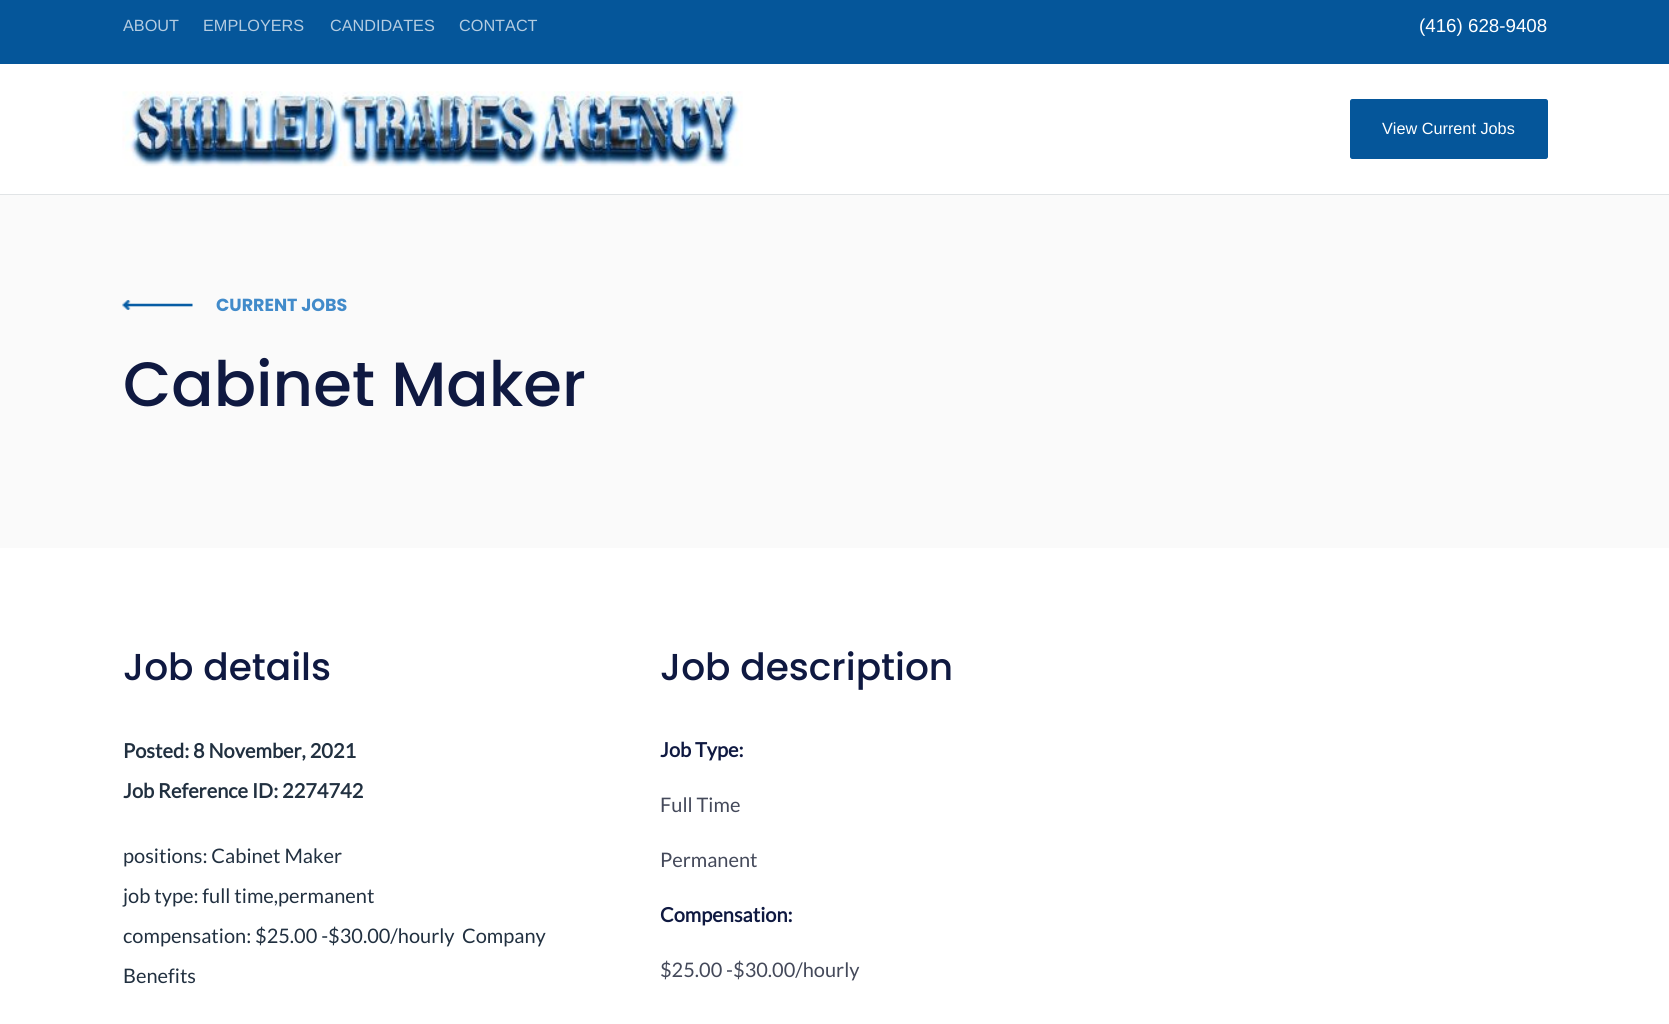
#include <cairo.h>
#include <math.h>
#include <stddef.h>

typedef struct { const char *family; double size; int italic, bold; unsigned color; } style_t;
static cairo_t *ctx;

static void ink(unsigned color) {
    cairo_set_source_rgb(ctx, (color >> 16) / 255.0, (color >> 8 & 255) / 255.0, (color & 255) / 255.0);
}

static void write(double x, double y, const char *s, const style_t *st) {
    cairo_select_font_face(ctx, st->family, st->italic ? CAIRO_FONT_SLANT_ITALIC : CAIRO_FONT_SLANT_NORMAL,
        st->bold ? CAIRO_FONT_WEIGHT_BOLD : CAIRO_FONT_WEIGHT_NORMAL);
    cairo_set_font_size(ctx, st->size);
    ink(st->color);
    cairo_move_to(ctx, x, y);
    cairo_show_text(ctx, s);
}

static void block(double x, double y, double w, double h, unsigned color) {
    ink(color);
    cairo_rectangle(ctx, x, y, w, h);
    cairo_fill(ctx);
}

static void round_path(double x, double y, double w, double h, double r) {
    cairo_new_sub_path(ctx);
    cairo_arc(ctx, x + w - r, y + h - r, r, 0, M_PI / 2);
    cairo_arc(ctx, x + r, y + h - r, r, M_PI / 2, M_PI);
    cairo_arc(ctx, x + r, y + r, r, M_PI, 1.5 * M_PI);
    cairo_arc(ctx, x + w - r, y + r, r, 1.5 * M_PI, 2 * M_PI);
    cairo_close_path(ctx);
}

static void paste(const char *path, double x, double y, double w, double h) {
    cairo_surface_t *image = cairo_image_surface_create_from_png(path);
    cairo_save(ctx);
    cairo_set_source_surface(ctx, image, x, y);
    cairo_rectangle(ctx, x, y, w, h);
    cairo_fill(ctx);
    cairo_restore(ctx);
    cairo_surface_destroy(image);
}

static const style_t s1 = {"Liberation Sans", 16.25, 0, 0, 0xb4cce1};
static const style_t s2 = {"Liberation Sans", 18.75, 0, 0, 0xffffff};
static const style_t s3 = {"Liberation Sans", 16.25, 0, 0, 0xffffff};
static const style_t s4 = {"Poppins", 17.5, 0, 1, 0x428bca};
static const style_t s5 = {"Poppins Medium", 62.5, 0, 0, 0x0f1941};
static const style_t s6 = {"Poppins Medium", 37.5, 0, 0, 0x0f1941};
static const style_t s7 = {"Lato", 20, 0, 1, 0x213040};
static const style_t s8 = {"Lato", 20, 0, 0, 0x213040};
static const style_t s9 = {"Lato", 20, 0, 1, 0x0f1941};
static const style_t s10 = {"Lato", 20, 0, 0, 0x44495a};

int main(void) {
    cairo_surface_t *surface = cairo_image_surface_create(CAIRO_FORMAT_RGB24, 1669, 1024);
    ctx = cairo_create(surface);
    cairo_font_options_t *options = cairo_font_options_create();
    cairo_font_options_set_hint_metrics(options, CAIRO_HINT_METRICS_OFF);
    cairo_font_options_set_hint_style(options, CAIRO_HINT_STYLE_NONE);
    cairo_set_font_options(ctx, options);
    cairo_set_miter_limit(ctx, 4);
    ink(0xffffff);
    cairo_paint(ctx);
    block(0, 194, 1669, 1, 0xe1e4e6);
    block(0, 0, 1669, 64, 0x05569a);
    write(123, 31, "ABOUT", &s1);
    write(203, 31, "EMPLOYERS", &s1);
    write(330, 31, "CANDIDATES", &s1);
    write(459, 31, "CONTACT", &s1);
    write(1419, 32, "(416) 628-9408", &s2);
    paste("pic1.png", 122, 91, 621, 76);
    ink(0x05569a);
    round_path(1350.5, 99.5, 197, 59, 2);
    cairo_fill_preserve(ctx);
    cairo_set_line_width(ctx, 1);
    cairo_stroke(ctx);
    write(1382, 134, "View Current Jobs", &s3);
    block(0, 195, 1669, 353, 0xfafafa);
    paste("pic2.png", 122, 300, 71, 10);
    write(216, 311, "CURRENT JOBS", &s4);
    write(123, 406, "Cabinet Maker", &s5);
    write(123, 680, "Job details", &s6);
    write(123, 758, "Posted: 8 November, 2021", &s7);
    write(123, 798, "Job Reference ID: 2274742", &s7);
    write(123, 863, "positions: Cabinet Maker", &s8);
    write(123, 903, "job type: full time,permanent", &s8);
    write(123, 943, "compensation: $25.00 -$30.00/hourly", &s8);
    write(462, 943, "Company", &s8);
    write(123, 983, "Benefits", &s8);
    write(660, 680, "Job description", &s6);
    write(660, 757, "Job Type:", &s9);
    write(660, 812, "Full Time", &s10);
    write(660, 867, "Permanent", &s10);
    write(660, 922, "Compensation:", &s9);
    write(660, 977, "$25.00 -$30.00/hourly", &s10);
    cairo_surface_write_to_png(surface, "screenshot.png");
    cairo_font_options_destroy(options);
    cairo_destroy(ctx);
    cairo_surface_destroy(surface);
    return 0;
}
